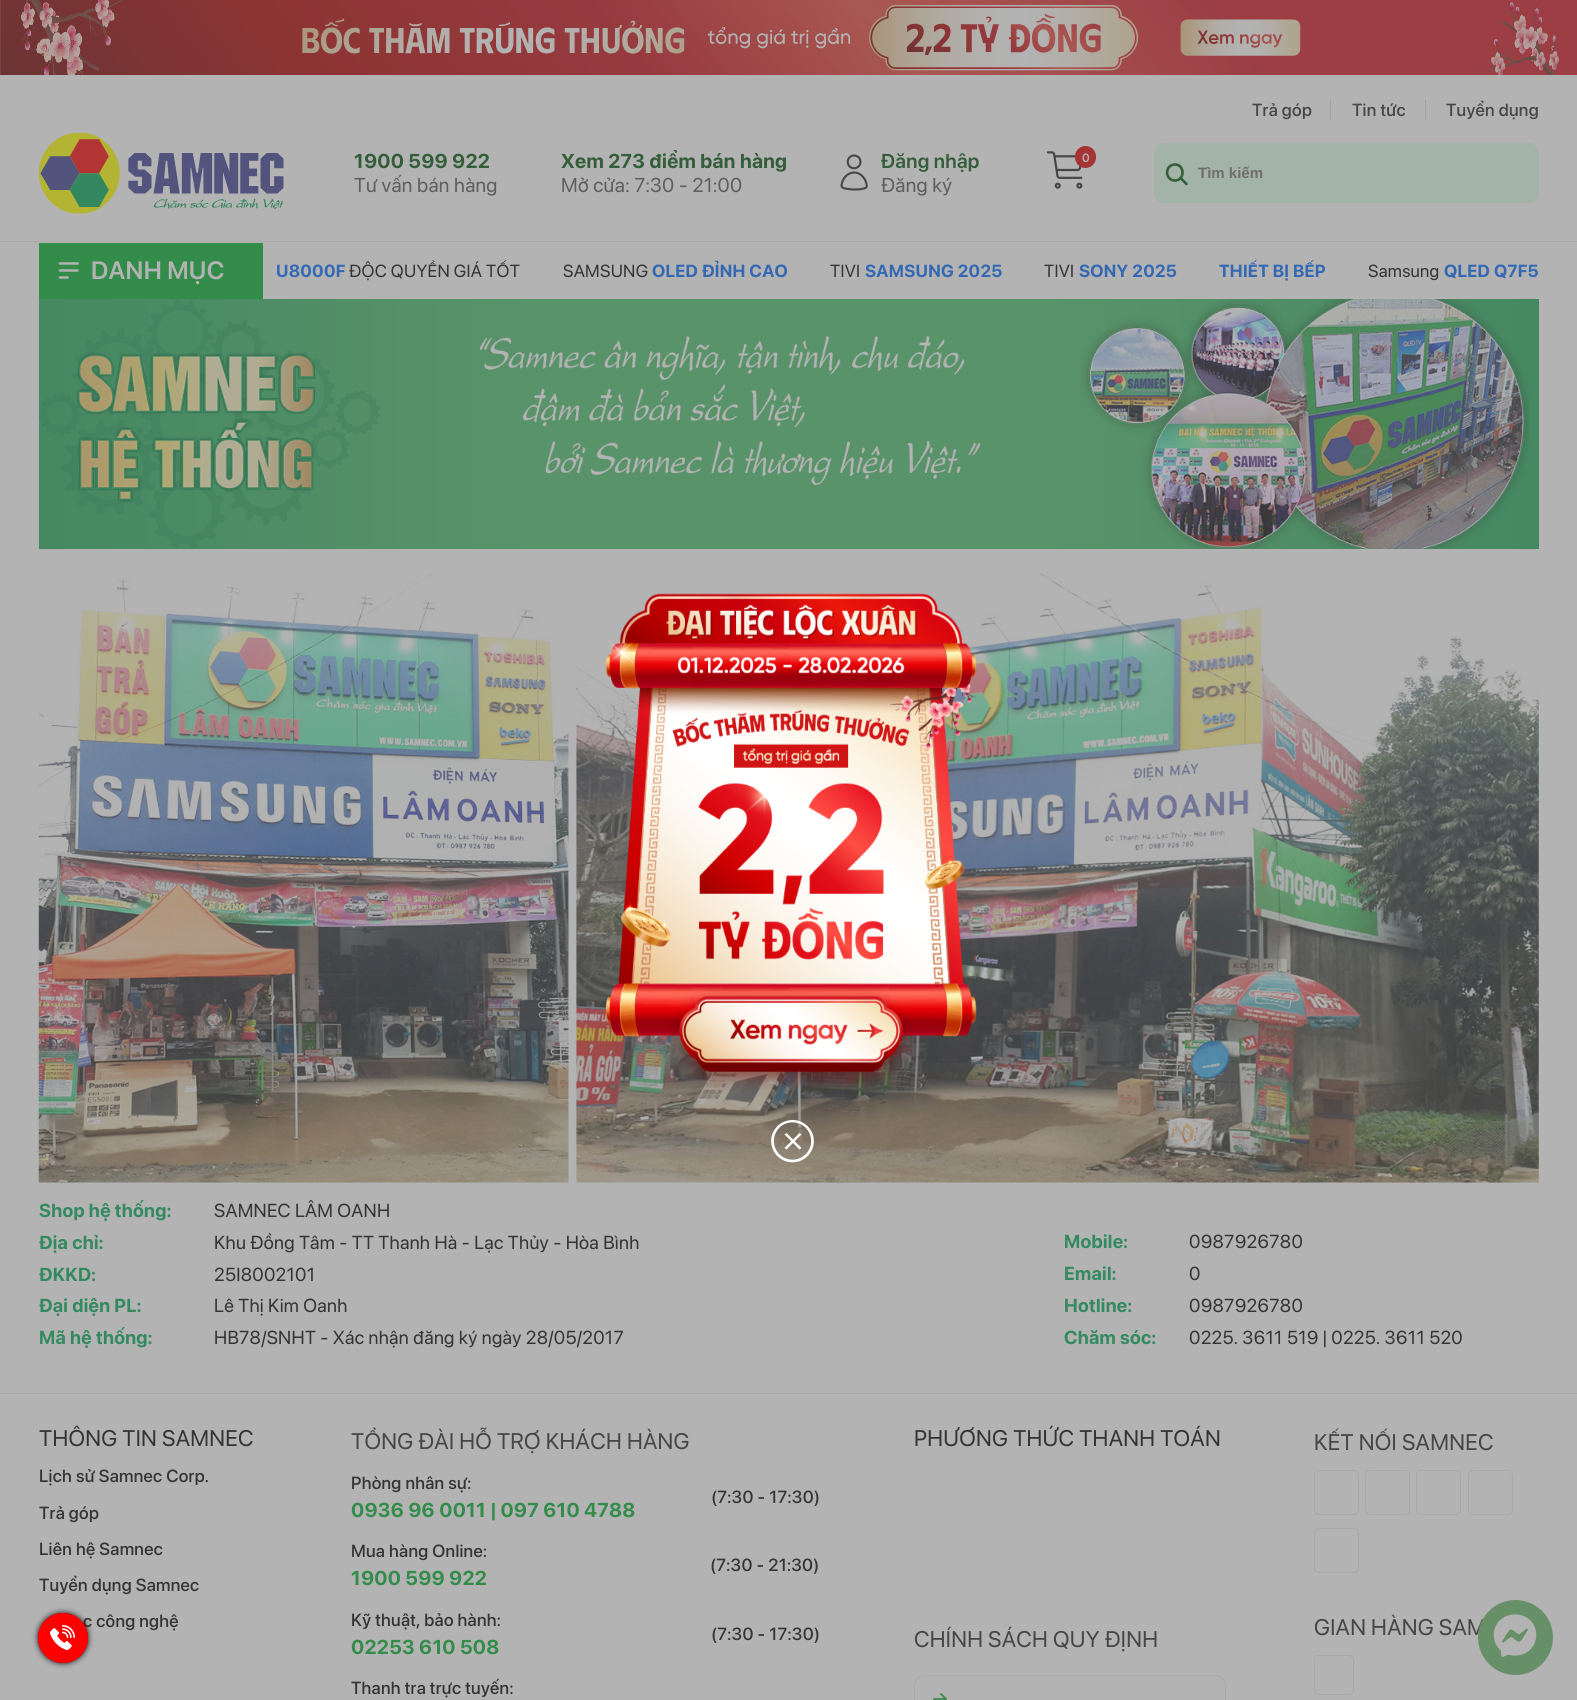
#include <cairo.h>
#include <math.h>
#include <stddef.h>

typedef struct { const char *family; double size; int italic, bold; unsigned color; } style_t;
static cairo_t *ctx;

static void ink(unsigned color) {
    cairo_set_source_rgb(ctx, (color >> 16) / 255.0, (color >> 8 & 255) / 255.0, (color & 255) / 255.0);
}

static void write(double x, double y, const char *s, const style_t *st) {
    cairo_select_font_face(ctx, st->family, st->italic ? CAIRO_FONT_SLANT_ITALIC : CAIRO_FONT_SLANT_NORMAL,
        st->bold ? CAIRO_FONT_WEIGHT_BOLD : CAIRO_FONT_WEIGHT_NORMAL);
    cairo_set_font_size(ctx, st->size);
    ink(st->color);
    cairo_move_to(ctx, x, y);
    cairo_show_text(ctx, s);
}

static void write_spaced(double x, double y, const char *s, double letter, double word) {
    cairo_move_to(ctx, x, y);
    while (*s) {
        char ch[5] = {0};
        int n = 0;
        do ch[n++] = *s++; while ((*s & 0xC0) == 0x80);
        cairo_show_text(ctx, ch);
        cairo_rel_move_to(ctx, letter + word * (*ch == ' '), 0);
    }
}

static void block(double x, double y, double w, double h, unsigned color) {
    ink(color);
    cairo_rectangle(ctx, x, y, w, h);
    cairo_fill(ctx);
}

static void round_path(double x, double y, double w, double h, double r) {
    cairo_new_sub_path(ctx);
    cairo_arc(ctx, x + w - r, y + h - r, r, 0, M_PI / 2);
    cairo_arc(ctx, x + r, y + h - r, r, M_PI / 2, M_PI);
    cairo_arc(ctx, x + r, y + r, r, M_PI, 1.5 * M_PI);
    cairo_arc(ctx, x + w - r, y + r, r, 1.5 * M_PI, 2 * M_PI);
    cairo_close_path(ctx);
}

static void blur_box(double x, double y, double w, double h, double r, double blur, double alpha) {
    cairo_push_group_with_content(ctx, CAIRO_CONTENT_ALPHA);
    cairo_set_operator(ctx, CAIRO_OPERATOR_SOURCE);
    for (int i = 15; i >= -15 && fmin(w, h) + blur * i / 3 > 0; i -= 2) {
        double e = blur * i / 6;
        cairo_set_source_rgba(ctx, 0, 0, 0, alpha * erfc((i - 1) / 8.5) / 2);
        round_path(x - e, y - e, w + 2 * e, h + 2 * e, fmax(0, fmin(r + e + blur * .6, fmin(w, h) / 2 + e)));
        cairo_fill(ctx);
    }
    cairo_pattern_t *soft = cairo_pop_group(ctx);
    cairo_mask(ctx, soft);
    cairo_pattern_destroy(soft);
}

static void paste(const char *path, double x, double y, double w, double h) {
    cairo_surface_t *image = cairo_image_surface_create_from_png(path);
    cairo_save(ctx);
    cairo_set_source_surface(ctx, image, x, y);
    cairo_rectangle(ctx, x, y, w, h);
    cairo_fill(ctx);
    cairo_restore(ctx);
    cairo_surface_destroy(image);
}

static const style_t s1 = {"Liberation Sans", 15, 0, 1, 0x6e6e6e};

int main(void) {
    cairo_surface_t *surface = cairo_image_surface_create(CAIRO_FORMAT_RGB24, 1577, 1700);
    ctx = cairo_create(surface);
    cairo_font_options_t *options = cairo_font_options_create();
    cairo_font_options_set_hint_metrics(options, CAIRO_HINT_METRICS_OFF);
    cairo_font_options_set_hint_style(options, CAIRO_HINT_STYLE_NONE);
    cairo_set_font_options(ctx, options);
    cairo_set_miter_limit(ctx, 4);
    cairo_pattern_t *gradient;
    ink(0xb3b3b3);
    cairo_paint(ctx);
    paste("pic1.png", 0, 0, 1577, 75);
    paste("pic2.png", 302, 5, 999, 66);
    cairo_select_font_face(ctx, "SF Pro Display Medium", CAIRO_FONT_SLANT_NORMAL, CAIRO_FONT_WEIGHT_NORMAL);
    cairo_set_font_size(ctx, 17.5);
    ink(0x464646);
    write_spaced(1252, 116, "Trả góp", 0.3, 0);
    block(1330, 100, 1, 20, 0xa0a0a0);
    ink(0x464646);
    write_spaced(1352, 116, "Tin tức", 0.3, 0);
    block(1425, 100, 1, 20, 0xa0a0a0);
    ink(0x464646);
    write_spaced(1446, 116, "Tuyển dụng", 0.3, 0);
    paste("pic3.png", 39, 133, 245, 81);
    cairo_select_font_face(ctx, "SF Pro Display", CAIRO_FONT_SLANT_NORMAL, CAIRO_FONT_WEIGHT_BOLD);
    cairo_set_font_size(ctx, 20);
    ink(0x345d3a);
    write_spaced(354, 168, "1900 599 922", 0.3, 0);
    cairo_select_font_face(ctx, "SF Pro Display", CAIRO_FONT_SLANT_NORMAL, CAIRO_FONT_WEIGHT_NORMAL);
    ink(0x5e5e5e);
    write_spaced(354, 192, "Tư vấn bán hàng", 0.3, 0);
    cairo_select_font_face(ctx, "SF Pro Display", CAIRO_FONT_SLANT_NORMAL, CAIRO_FONT_WEIGHT_BOLD);
    ink(0x345d3a);
    write_spaced(561, 168, "Xem 273 điểm bán hàng", 0.3, 0);
    cairo_select_font_face(ctx, "SF Pro Display", CAIRO_FONT_SLANT_NORMAL, CAIRO_FONT_WEIGHT_NORMAL);
    ink(0x5e5e5e);
    write_spaced(561, 192, "Mở cửa: 7:30 - 21:00", 0.3, 0);
    paste("pic4.png", 840, 154, 28, 37);
    cairo_select_font_face(ctx, "SF Pro Display SemiBold", CAIRO_FONT_SLANT_NORMAL, CAIRO_FONT_WEIGHT_NORMAL);
    ink(0x345d3a);
    write_spaced(881, 168, "Đăng nhập", 0.3, 0);
    cairo_select_font_face(ctx, "SF Pro Display", CAIRO_FONT_SLANT_NORMAL, CAIRO_FONT_WEIGHT_NORMAL);
    ink(0x5e5e5e);
    write_spaced(881, 192, "Đăng ký", 0.3, 0);
    paste("pic5.png", 1046, 151, 37, 38);
    ink(0xa53434);
    round_path(1075, 146, 21, 22, 10.5);
    cairo_fill(ctx);
    cairo_select_font_face(ctx, "SF Pro Display SemiBold", CAIRO_FONT_SLANT_NORMAL, CAIRO_FONT_WEIGHT_NORMAL);
    cairo_set_font_size(ctx, 12);
    ink(0xb3b3b3);
    write_spaced(1082, 162, "0", 0.3, 0);
    ink(0xa4b3a8);
    round_path(1154, 143, 385, 60, 10);
    cairo_fill(ctx);
    cairo_new_path(ctx);
    cairo_move_to(ctx, 1186.5, 184);
    cairo_line_to(ctx, 1180.5, 178);
    cairo_move_to(ctx, 1175, 180.5);
    cairo_curve_to(ctx, 1185, 180.5, 1185, 164.5, 1175, 164.5);
    cairo_curve_to(ctx, 1164.5, 164.5, 1164.5, 180.5, 1175, 180.5);
    cairo_close_path(ctx);
    ink(0x345d3a);
    cairo_set_line_width(ctx, 2.6);
    cairo_set_line_cap(ctx, CAIRO_LINE_CAP_ROUND);
    cairo_set_line_join(ctx, CAIRO_LINE_JOIN_ROUND);
    cairo_stroke(ctx);
    cairo_save(ctx);
    cairo_rectangle(ctx, 1198, 164, 341, 17);
    cairo_clip(ctx);
    write(1198, 178, "Tìm kiếm", &s1);
    cairo_restore(ctx);
    block(0, 241, 1577, 1, 0xaaaaaa);
    block(39, 243, 224, 56, 0x348c4b);
    cairo_new_path(ctx);
    cairo_move_to(ctx, 67.5, 277.5);
    cairo_line_to(ctx, 60, 277.5);
    cairo_move_to(ctx, 77.5, 263.5);
    cairo_line_to(ctx, 60, 263.5);
    cairo_close_path(ctx);
    cairo_move_to(ctx, 77.5, 270.5);
    cairo_line_to(ctx, 60, 270.5);
    cairo_close_path(ctx);
    ink(0xb3b3b3);
    cairo_set_line_width(ctx, 2.5);
    cairo_stroke(ctx);
    cairo_set_font_size(ctx, 25);
    write_spaced(91, 279, "DANH MỤC", 0.3, 0);
    cairo_select_font_face(ctx, "SF Pro Display", CAIRO_FONT_SLANT_NORMAL, CAIRO_FONT_WEIGHT_BOLD);
    cairo_set_font_size(ctx, 17.5);
    ink(0x3468b3);
    write_spaced(276, 277, "U8000F", 0.3, 0);
    cairo_select_font_face(ctx, "SF Pro Display", CAIRO_FONT_SLANT_NORMAL, CAIRO_FONT_WEIGHT_NORMAL);
    ink(0x343434);
    write_spaced(349, 277, "ĐỘC QUYỀN GIÁ TỐT", 0.3, 0);
    write_spaced(563, 277, "SAMSUNG", 0.3, 0);
    cairo_select_font_face(ctx, "SF Pro Display", CAIRO_FONT_SLANT_NORMAL, CAIRO_FONT_WEIGHT_BOLD);
    ink(0x3468b3);
    write_spaced(652, 277, "OLED ĐỈNH CAO", 0.3, 0);
    cairo_select_font_face(ctx, "SF Pro Display", CAIRO_FONT_SLANT_NORMAL, CAIRO_FONT_WEIGHT_NORMAL);
    ink(0x343434);
    write_spaced(830, 277, "TIVI", 0.3, 0);
    cairo_select_font_face(ctx, "SF Pro Display", CAIRO_FONT_SLANT_NORMAL, CAIRO_FONT_WEIGHT_BOLD);
    ink(0x3468b3);
    write_spaced(865, 277, "SAMSUNG 2025", 0.3, 0);
    cairo_select_font_face(ctx, "SF Pro Display", CAIRO_FONT_SLANT_NORMAL, CAIRO_FONT_WEIGHT_NORMAL);
    ink(0x343434);
    write_spaced(1044, 277, "TIVI", 0.3, 0);
    cairo_select_font_face(ctx, "SF Pro Display", CAIRO_FONT_SLANT_NORMAL, CAIRO_FONT_WEIGHT_BOLD);
    ink(0x3468b3);
    write_spaced(1079, 277, "SONY 2025", 0.3, 0);
    write_spaced(1219, 277, "THIẾT BỊ BẾP", 0.3, 0);
    cairo_select_font_face(ctx, "SF Pro Display", CAIRO_FONT_SLANT_NORMAL, CAIRO_FONT_WEIGHT_NORMAL);
    ink(0x343434);
    write_spaced(1368, 277, "Samsung", 0.3, 0);
    cairo_select_font_face(ctx, "SF Pro Display", CAIRO_FONT_SLANT_NORMAL, CAIRO_FONT_WEIGHT_BOLD);
    ink(0x3468b3);
    write_spaced(1444, 277, "QLED Q7F5", 0.3, 0);
    paste("pic10.png", 38, 573, 1501, 610);
    paste("pic6.png", 605, 593, 372, 497);
    cairo_save(ctx);
    round_path(771, 1120, 43, 43, 21.5);
    cairo_clip(ctx);
    cairo_arc(ctx, 792.5, 1141, 20, 0, 2 * M_PI);
    ink(0xffffff);
    cairo_set_line_width(ctx, 2.7);
    cairo_set_line_cap(ctx, CAIRO_LINE_CAP_BUTT);
    cairo_set_line_join(ctx, CAIRO_LINE_JOIN_MITER);
    cairo_stroke(ctx);
    cairo_restore(ctx);
    ink(0xffffff);
    cairo_new_path(ctx);
    cairo_move_to(ctx, 784.5, 1148);
    cairo_line_to(ctx, 799.5, 1133);
    cairo_line_to(ctx, 801.5, 1134.5);
    cairo_line_to(ctx, 786.5, 1149.5);
    cairo_close_path(ctx);
    cairo_fill(ctx);
    cairo_new_path(ctx);
    cairo_move_to(ctx, 799.5, 1149.5);
    cairo_line_to(ctx, 784.5, 1134.5);
    cairo_line_to(ctx, 786.5, 1133);
    cairo_line_to(ctx, 801.5, 1148);
    cairo_close_path(ctx);
    cairo_fill(ctx);
    gradient = cairo_pattern_create_linear(39, 424, 1539, 424);
    cairo_pattern_add_color_stop_rgba(gradient, 0, 0.271, 0.533, 0.384, 1);
    cairo_pattern_add_color_stop_rgba(gradient, 0.33, 0.349, 0.576, 0.416, 1);
    cairo_pattern_add_color_stop_rgba(gradient, 0.67, 0.349, 0.576, 0.416, 1);
    cairo_pattern_add_color_stop_rgba(gradient, 1, 0.271, 0.533, 0.384, 1);
    cairo_set_source(ctx, gradient);
    cairo_pattern_destroy(gradient);
    cairo_rectangle(ctx, 39, 299, 1500, 250);
    cairo_fill(ctx);
    paste("pic7.png", 38, 299, 342, 250);
    paste("pic8.png", 480, 336, 500, 149);
    paste("pic9.png", 1080, 299, 449, 250);
    cairo_set_font_size(ctx, 18.75);
    ink(0x348a5f);
    write_spaced(39, 1217, "Shop hệ thống:", 0.3, 0);
    write_spaced(39, 1249, "Địa chỉ:", 0.3, 0);
    write_spaced(39, 1281, "ĐKKD:", 0.3, 0);
    write_spaced(39, 1312, "Đại diện PL:", 0.3, 0);
    write_spaced(39, 1344, "Mã hệ thống:", 0.3, 0);
    cairo_select_font_face(ctx, "SF Pro Display", CAIRO_FONT_SLANT_NORMAL, CAIRO_FONT_WEIGHT_NORMAL);
    ink(0x343434);
    write_spaced(214, 1217, "SAMNEC LÂM OANH", 0.3, 0);
    write_spaced(214, 1249, "Khu Đồng Tâm - TT Thanh Hà - Lạc Thủy - Hòa Bình", 0.3, 0);
    write_spaced(214, 1281, "25I8002101", 0.3, 0);
    write_spaced(214, 1312, "Lê Thị Kim Oanh", 0.3, 0);
    write_spaced(214, 1344, "HB78/SNHT - Xác nhận đăng ký ngày 28/05/2017", 0.3, 0);
    cairo_select_font_face(ctx, "SF Pro Display", CAIRO_FONT_SLANT_NORMAL, CAIRO_FONT_WEIGHT_BOLD);
    ink(0x348a5f);
    write_spaced(1064, 1248, "Mobile:", 0.3, 0);
    write_spaced(1064, 1280, "Email:", 0.3, 0);
    write_spaced(1064, 1312, "Hotline:", 0.3, 0);
    write_spaced(1064, 1344, "Chăm sóc:", 0.3, 0);
    cairo_select_font_face(ctx, "SF Pro Display", CAIRO_FONT_SLANT_NORMAL, CAIRO_FONT_WEIGHT_NORMAL);
    ink(0x343434);
    write_spaced(1189, 1248, "0987926780", 0.3, 0);
    write_spaced(1189, 1280, "0", 0.3, 0);
    write_spaced(1189, 1312, "0987926780", 0.3, 0);
    write_spaced(1189, 1344, "0225. 3611 519 | 0225. 3611 520", 0.3, 0);
    block(0, 1393, 1577, 1, 0xa6a8ad);
    cairo_set_font_size(ctx, 22.5);
    ink(0x343434);
    write_spaced(39, 1446, "THÔNG TIN SAMNEC", 0.3, 0);
    cairo_select_font_face(ctx, "SF Pro Display Medium", CAIRO_FONT_SLANT_NORMAL, CAIRO_FONT_WEIGHT_NORMAL);
    cairo_set_font_size(ctx, 17.5);
    write_spaced(39, 1482, "Lịch sử Samnec Corp.", 0.3, 0);
    write_spaced(39, 1519, "Trả góp", 0.3, 0);
    write_spaced(39, 1555, "Liên hệ Samnec", 0.3, 0);
    write_spaced(39, 1591, "Tuyển dụng Samnec", 0.3, 0);
    write_spaced(83, 1627, "c công nghệ", 0.3, 0);
    cairo_select_font_face(ctx, "SF Pro Display", CAIRO_FONT_SLANT_NORMAL, CAIRO_FONT_WEIGHT_NORMAL);
    cairo_set_font_size(ctx, 22.5);
    ink(0x464646);
    write_spaced(351, 1449, "TỔNG ĐÀI HỖ TRỢ KHÁCH HÀNG", 0.3, 0);
    cairo_select_font_face(ctx, "SF Pro Display Medium", CAIRO_FONT_SLANT_NORMAL, CAIRO_FONT_WEIGHT_NORMAL);
    cairo_set_font_size(ctx, 17.5);
    ink(0x343434);
    write_spaced(351, 1489, "Phòng nhân sự:", 0.3, 0);
    cairo_select_font_face(ctx, "SF Pro Display", CAIRO_FONT_SLANT_NORMAL, CAIRO_FONT_WEIGHT_BOLD);
    cairo_set_font_size(ctx, 20);
    ink(0x348c4b);
    write_spaced(351, 1517, "0936 96 0011", 0.3, 0);
    write_spaced(491, 1517, "| 097 610 4788", 0.3, 0);
    cairo_select_font_face(ctx, "SF Pro Display Medium", CAIRO_FONT_SLANT_NORMAL, CAIRO_FONT_WEIGHT_NORMAL);
    cairo_set_font_size(ctx, 17.5);
    ink(0x343434);
    write_spaced(711, 1503, "(7:30 - 17:30)", 0.3, 0);
    write_spaced(351, 1557, "Mua hàng Online:", 0.3, 0);
    cairo_select_font_face(ctx, "SF Pro Display", CAIRO_FONT_SLANT_NORMAL, CAIRO_FONT_WEIGHT_BOLD);
    cairo_set_font_size(ctx, 20);
    ink(0x348c4b);
    write_spaced(351, 1585, "1900 599 922", 0.3, 0);
    cairo_select_font_face(ctx, "SF Pro Display Medium", CAIRO_FONT_SLANT_NORMAL, CAIRO_FONT_WEIGHT_NORMAL);
    cairo_set_font_size(ctx, 17.5);
    ink(0x343434);
    write_spaced(710, 1571, "(7:30 - 21:30)", 0.3, 0);
    write_spaced(351, 1626, "Kỹ thuật, bảo hành:", 0.3, 0);
    cairo_select_font_face(ctx, "SF Pro Display", CAIRO_FONT_SLANT_NORMAL, CAIRO_FONT_WEIGHT_BOLD);
    cairo_set_font_size(ctx, 20);
    ink(0x348c4b);
    write_spaced(351, 1654, "02253 610 508", 0.3, 0);
    cairo_select_font_face(ctx, "SF Pro Display Medium", CAIRO_FONT_SLANT_NORMAL, CAIRO_FONT_WEIGHT_NORMAL);
    cairo_set_font_size(ctx, 17.5);
    ink(0x343434);
    write_spaced(711, 1640, "(7:30 - 17:30)", 0.3, 0);
    write_spaced(351, 1694, "Thanh tra trực tuyến:", 0.3, 0);
    cairo_select_font_face(ctx, "SF Pro Display", CAIRO_FONT_SLANT_NORMAL, CAIRO_FONT_WEIGHT_NORMAL);
    cairo_set_font_size(ctx, 22.5);
    write_spaced(914, 1446, "PHƯƠNG THỨC THANH TOÁN", 0.3, 0);
    ink(0x464646);
    write_spaced(914, 1647, "CHÍNH SÁCH QUY ĐỊNH", 0.3, 0);
    round_path(914.5, 1675.5, 311, 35, 9.5);
    ink(0xa6a8ad);
    cairo_set_line_width(ctx, 1);
    cairo_set_line_cap(ctx, CAIRO_LINE_CAP_BUTT);
    cairo_set_line_join(ctx, CAIRO_LINE_JOIN_MITER);
    cairo_stroke(ctx);
    cairo_new_path(ctx);
    cairo_move_to(ctx, 946, 1699);
    cairo_line_to(ctx, 934, 1699);
    cairo_move_to(ctx, 946, 1699);
    cairo_line_to(ctx, 941, 1694);
    cairo_move_to(ctx, 946, 1699);
    cairo_line_to(ctx, 941, 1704);
    ink(0x348c4b);
    cairo_set_line_width(ctx, 1.8);
    cairo_set_line_cap(ctx, CAIRO_LINE_CAP_ROUND);
    cairo_set_line_join(ctx, CAIRO_LINE_JOIN_ROUND);
    cairo_stroke(ctx);
    ink(0x464646);
    write_spaced(1314, 1450, "KẾT NỐI SAMNEC", 0.3, 0);
    round_path(1314.5, 1470.5, 44, 44, 4.5);
    ink(0xa6a8ad);
    cairo_set_line_width(ctx, 1);
    cairo_set_line_cap(ctx, CAIRO_LINE_CAP_BUTT);
    cairo_set_line_join(ctx, CAIRO_LINE_JOIN_MITER);
    cairo_stroke(ctx);
    round_path(1365.5, 1470.5, 44, 44, 4.5);
    cairo_stroke(ctx);
    round_path(1416.5, 1470.5, 44, 44, 4.5);
    cairo_stroke(ctx);
    round_path(1468.5, 1470.5, 44, 44, 4.5);
    cairo_stroke(ctx);
    round_path(1314.5, 1528.5, 44, 44, 4.5);
    cairo_stroke(ctx);
    ink(0x464646);
    write_spaced(1314, 1635, "GIAN HÀNG SAM", 0.3, 0);
    round_path(1314.5, 1655.5, 39, 39, 4.5);
    ink(0xa6a8ad);
    cairo_stroke(ctx);
    ink(0x679068);
    cairo_arc(ctx, 1515.5, 1637.5, 37.5, 0, 2 * M_PI);
    cairo_fill(ctx);
    paste("pic11.png", 1493, 1614, 44, 43);
    cairo_arc(ctx, 63, 1638, 24.5, 0, 2 * M_PI);
    ink(0xff0000);
    cairo_stroke(ctx);
    ink(0x111111);
    blur_box(38, 1613, 50, 50, 25, 3, 1);
    ink(0xff0000);
    cairo_arc(ctx, 63, 1638, 25, 0, 2 * M_PI);
    cairo_fill(ctx);
    paste("pic12.png", 50, 1625, 25, 25);
    cairo_surface_write_to_png(surface, "screenshot.png");
    cairo_font_options_destroy(options);
    cairo_destroy(ctx);
    cairo_surface_destroy(surface);
    return 0;
}
